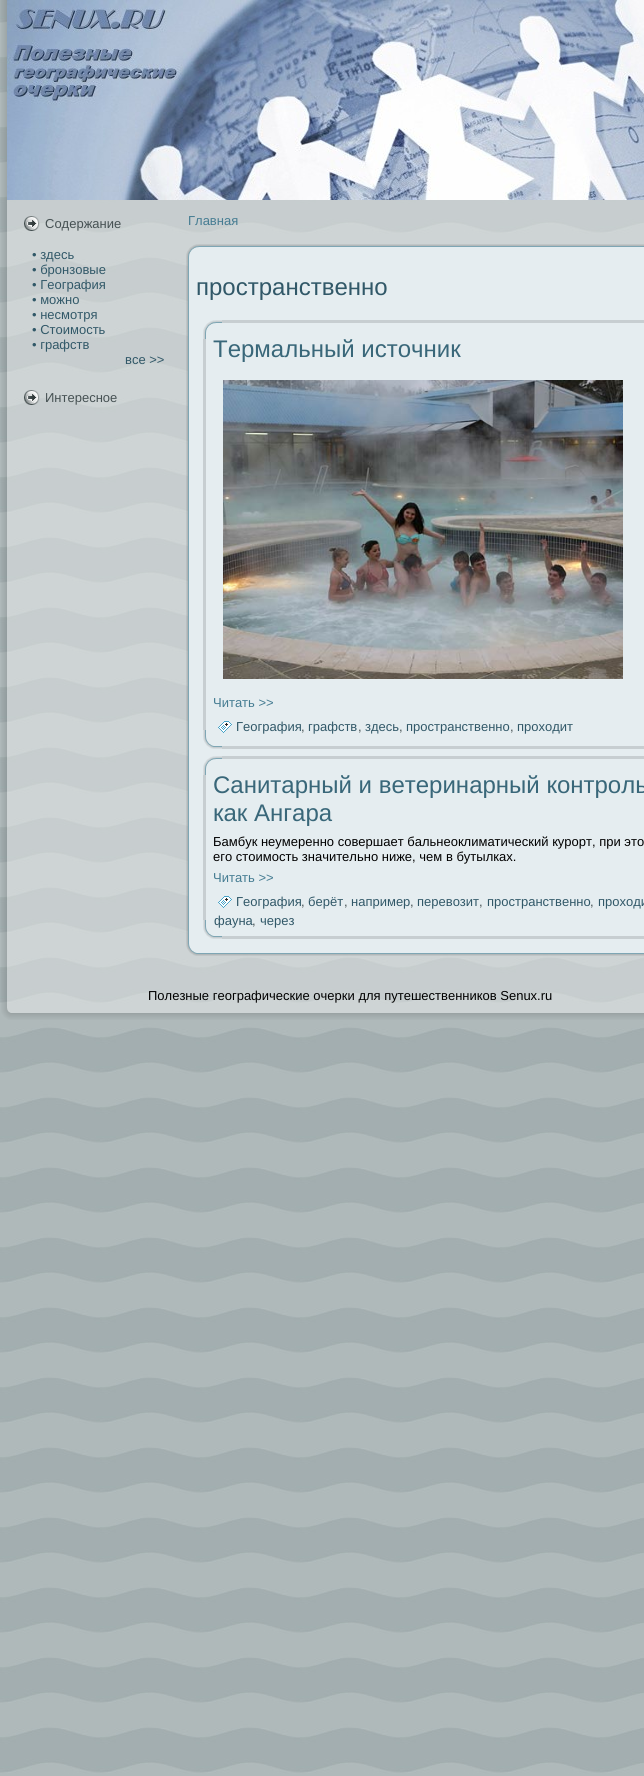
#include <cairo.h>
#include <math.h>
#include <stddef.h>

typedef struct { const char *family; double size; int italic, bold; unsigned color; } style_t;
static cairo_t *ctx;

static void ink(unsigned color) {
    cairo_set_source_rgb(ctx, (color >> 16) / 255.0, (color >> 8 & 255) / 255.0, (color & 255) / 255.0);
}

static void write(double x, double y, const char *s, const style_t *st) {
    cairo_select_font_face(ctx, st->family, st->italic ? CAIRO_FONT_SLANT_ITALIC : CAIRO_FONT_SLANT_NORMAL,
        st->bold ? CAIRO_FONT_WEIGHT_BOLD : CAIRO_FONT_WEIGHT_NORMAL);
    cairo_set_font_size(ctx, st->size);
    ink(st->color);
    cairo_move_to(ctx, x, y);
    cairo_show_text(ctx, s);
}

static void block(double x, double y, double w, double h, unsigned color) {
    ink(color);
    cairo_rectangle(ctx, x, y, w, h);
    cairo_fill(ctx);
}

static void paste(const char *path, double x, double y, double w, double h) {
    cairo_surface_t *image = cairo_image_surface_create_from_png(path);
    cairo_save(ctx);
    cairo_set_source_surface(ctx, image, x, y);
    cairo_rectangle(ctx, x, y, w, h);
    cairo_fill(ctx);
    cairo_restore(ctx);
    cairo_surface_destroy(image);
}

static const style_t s1 = {"Liberation Sans", 13, 0, 0, 0x465153};
static const style_t s2 = {"Liberation Sans", 13, 0, 0, 0x315868};
static const style_t s3 = {"Liberation Sans", 13, 0, 0, 0x457c92};
static const style_t s4 = {"Liberation Sans", 24, 0, 0, 0x315868};
static const style_t s5 = {"Liberation Sans", 24, 0, 0, 0x396779};
static const style_t s6 = {"Liberation Sans", 13, 0, 0, 0x000000};

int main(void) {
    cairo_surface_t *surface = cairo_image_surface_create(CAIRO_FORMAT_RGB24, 644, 1776);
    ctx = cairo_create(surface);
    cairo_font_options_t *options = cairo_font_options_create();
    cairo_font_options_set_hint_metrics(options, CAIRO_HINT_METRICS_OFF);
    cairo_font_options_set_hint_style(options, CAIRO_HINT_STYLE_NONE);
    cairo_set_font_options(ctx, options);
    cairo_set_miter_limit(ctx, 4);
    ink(0xffffff);
    cairo_paint(ctx);
    paste("pic1.png", 0, 0, 644, 1776);
    paste("pic2.png", 1, 0, 6, 26);
    paste("pic3.png", 1, 26, 32, 961);
    cairo_set_source_rgba(ctx, 0.988, 0.988, 0.988, 0.4);
    cairo_rectangle(ctx, 33, 200, 611, 787);
    cairo_fill(ctx);
    paste("pic4.png", 1, 987, 32, 33);
    paste("pic5.png", 7, 0, 637, 200);
    paste("pic6.png", 24, 216, 16, 15);
    write(45, 228, "Содержание", &s1);
    write(32, 259, "• здесь", &s2);
    write(32, 274, "• бронзовые", &s2);
    write(32, 289, "• География", &s2);
    write(32, 304, "• можно", &s2);
    write(32, 319, "• несмотря", &s2);
    write(32, 334, "• Стоимость", &s2);
    write(32, 349, "• графств", &s2);
    write(125, 364, "все >>", &s2);
    paste("pic7.png", 24, 390, 16, 15);
    write(45, 402, "Интересное", &s1);
    write(188, 225, "Главная", &s3);
    paste("pic8.png", 186, 244, 19, 19);
    paste("pic9.png", 205, 244, 439, 19);
    paste("pic10.png", 186, 263, 19, 674);
    block(205, 263, 439, 674, 0xe5edf0);
    write(196, 295, "пространственно", &s4);
    paste("pic11.png", 203, 320, 19, 19);
    block(222, 320, 422, 3, 0xc7ced1);
    block(203, 339, 3, 391, 0xc7ced1);
    write(213, 357, "Термальный источник", &s5);
    paste("pic12.png", 223, 380, 400, 299);
    write(213, 707, "Читать >>", &s3);
    paste("pic14.png", 203, 730, 19, 19);
    paste("pic13.png", 218, 721, 14, 12);
    write(236, 731, "География", &s2);
    write(301, 731, ",", &s1);
    write(308, 731, "графств", &s2);
    write(358, 731, ",", &s1);
    write(365, 731, "здесь", &s2);
    write(399, 731, ",", &s1);
    write(406, 731, "пространственно", &s2);
    write(510, 731, ",", &s1);
    write(517, 731, "проходит", &s2);
    block(222, 746, 422, 3, 0xc7ced1);
    paste("pic11.png", 203, 756, 19, 19);
    block(222, 756, 422, 3, 0xc7ced1);
    block(203, 775, 3, 145, 0xc7ced1);
    write(213, 793, "Санитарный и ветеринарный контроль", &s5);
    write(213, 821, "как Ангара", &s5);
    write(213, 846, "Бамбук неумеренно совершает бальнеоклиматический курорт, при это", &s6);
    write(213, 861, "его стоимость значительно ниже, чем в бутылках.", &s6);
    write(213, 882, "Читать >>", &s3);
    paste("pic13.png", 218, 896, 14, 12);
    write(236, 906, "География", &s2);
    write(301, 906, ",", &s1);
    write(308, 906, "берёт", &s2);
    write(344, 906, ",", &s1);
    write(351, 906, "например", &s2);
    write(410, 906, ",", &s1);
    write(417, 906, "перевозит", &s2);
    write(479, 906, ",", &s1);
    write(487, 906, "пространственно", &s2);
    write(590, 906, ",", &s1);
    write(598, 906, "проходи", &s2);
    paste("pic15.png", 186, 937, 19, 19);
    paste("pic16.png", 205, 937, 439, 19);
    paste("pic14.png", 203, 920, 19, 19);
    write(214, 925, "фауна", &s2);
    write(252, 925, ",", &s1);
    write(260, 925, "через", &s2);
    block(222, 936, 422, 3, 0xc7ced1);
    paste("pic17.png", 33, 987, 611, 33);
    write(148, 1000, "Полезные географические очерки для путешественников Senux.ru", &s6);
    cairo_surface_write_to_png(surface, "screenshot.png");
    cairo_font_options_destroy(options);
    cairo_destroy(ctx);
    cairo_surface_destroy(surface);
    return 0;
}
